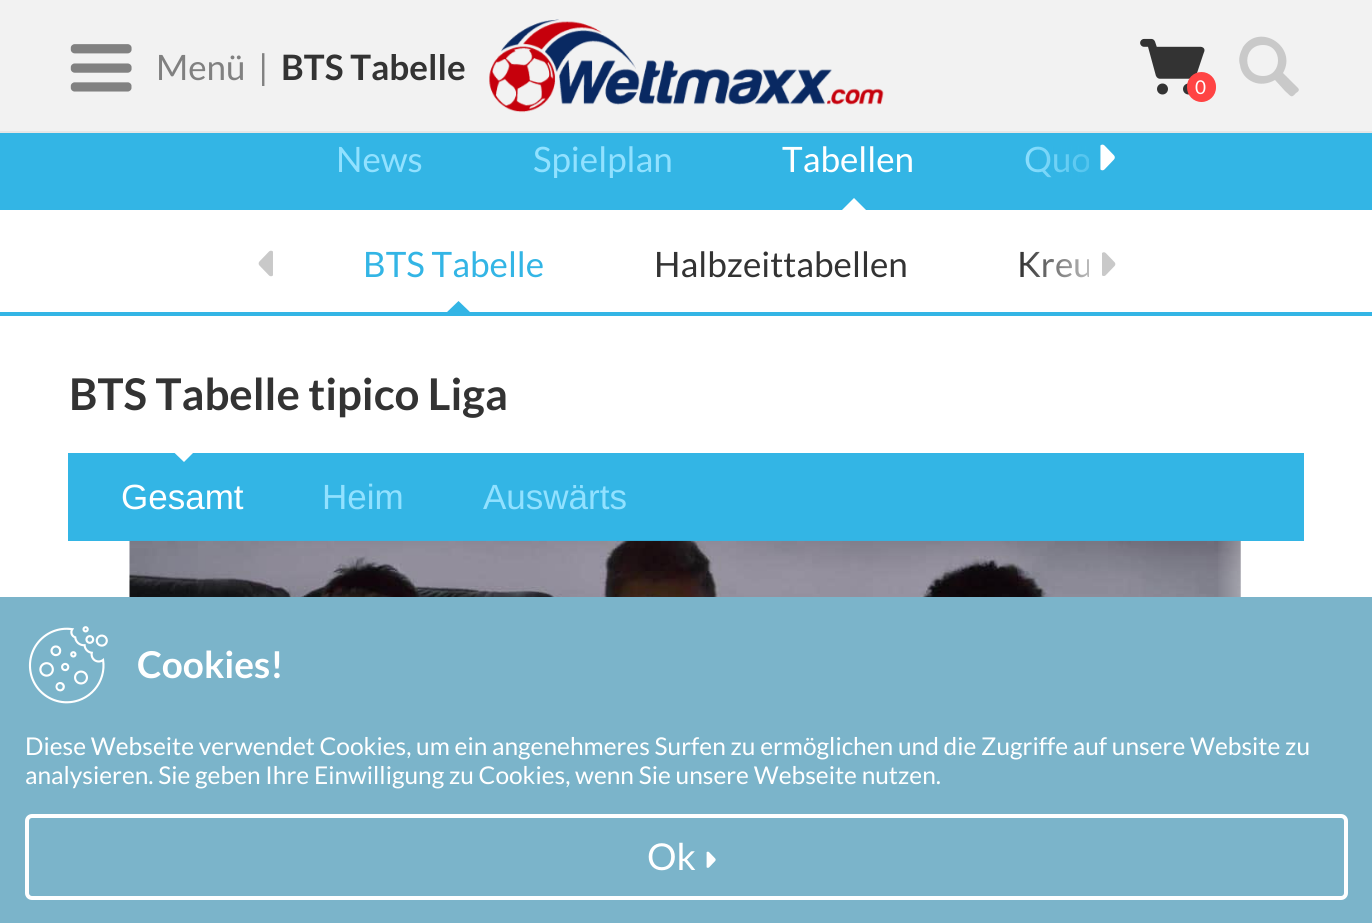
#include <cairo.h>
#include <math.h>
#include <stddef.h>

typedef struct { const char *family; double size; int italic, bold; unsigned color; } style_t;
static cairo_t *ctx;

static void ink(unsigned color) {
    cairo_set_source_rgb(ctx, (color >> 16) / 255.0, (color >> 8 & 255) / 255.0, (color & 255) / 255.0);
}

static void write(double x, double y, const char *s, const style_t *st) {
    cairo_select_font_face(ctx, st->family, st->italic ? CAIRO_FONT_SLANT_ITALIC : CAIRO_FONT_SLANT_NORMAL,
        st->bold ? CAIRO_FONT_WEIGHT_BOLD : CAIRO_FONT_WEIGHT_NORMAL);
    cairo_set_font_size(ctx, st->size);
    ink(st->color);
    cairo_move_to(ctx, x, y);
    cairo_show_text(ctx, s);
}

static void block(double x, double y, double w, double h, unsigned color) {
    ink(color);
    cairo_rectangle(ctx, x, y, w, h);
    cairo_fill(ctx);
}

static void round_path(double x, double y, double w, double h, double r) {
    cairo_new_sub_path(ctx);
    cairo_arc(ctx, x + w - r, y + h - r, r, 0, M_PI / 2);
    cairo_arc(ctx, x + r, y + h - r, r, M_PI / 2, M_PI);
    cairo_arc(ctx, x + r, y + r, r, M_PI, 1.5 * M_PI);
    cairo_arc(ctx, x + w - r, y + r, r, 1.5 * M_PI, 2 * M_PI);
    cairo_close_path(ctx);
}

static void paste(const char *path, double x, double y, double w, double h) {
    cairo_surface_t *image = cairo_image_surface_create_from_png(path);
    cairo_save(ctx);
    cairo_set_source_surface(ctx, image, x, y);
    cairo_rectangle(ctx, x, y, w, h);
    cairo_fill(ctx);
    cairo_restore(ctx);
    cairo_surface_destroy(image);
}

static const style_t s1 = {"Lato", 35, 0, 0, 0x818181};
static const style_t s2 = {"Lato", 35, 0, 1, 0x333333};
static const style_t s3 = {"Lato", 19, 0, 0, 0xffffff};
static const style_t s4 = {"Lato", 35, 0, 0, 0x91e1ff};
static const style_t s5 = {"Lato", 35, 0, 0, 0xffffff};
static const style_t s6 = {"Lato", 35, 0, 0, 0x33b5e5};
static const style_t s7 = {"Lato", 35, 0, 0, 0x333333};
static const style_t s8 = {"Lato", 43.75, 0, 1, 0x333333};
static const style_t s9 = {"Liberation Sans", 35, 0, 0, 0xffffff};
static const style_t s10 = {"Liberation Sans", 35, 0, 0, 0x91e1ff};
static const style_t s11 = {"Lato", 37, 0, 1, 0xffffff};
static const style_t s12 = {"Lato", 24.5, 0, 0, 0xffffff};
static const style_t s13 = {"Lato", 37, 0, 0, 0xffffff};

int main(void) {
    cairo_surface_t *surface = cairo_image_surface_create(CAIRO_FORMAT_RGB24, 1372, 923);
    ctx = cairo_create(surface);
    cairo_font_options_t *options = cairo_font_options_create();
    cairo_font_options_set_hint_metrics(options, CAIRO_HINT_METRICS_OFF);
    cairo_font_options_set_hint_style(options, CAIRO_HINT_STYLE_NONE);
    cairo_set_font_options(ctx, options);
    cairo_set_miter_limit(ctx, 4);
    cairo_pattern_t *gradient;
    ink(0xffffff);
    cairo_paint(ctx);
    block(0, 0, 1372, 131, 0xf2f2f2);
    block(0, 131, 1372, 2, 0xe6e6e6);
    paste("pic1.png", 70, 44, 62, 48);
    write(156, 80, "Menü", &s1);
    write(258, 80, "|", &s1);
    write(281, 80, "BTS Tabelle", &s2);
    paste("pic2.png", 489, 19, 395, 94);
    paste("pic3.png", 1140, 38, 65, 57);
    ink(0xff4444);
    round_path(1187, 72, 29, 30, 14.5);
    cairo_fill(ctx);
    write(1195, 94, "0", &s3);
    ink(0xc9c9c9);
    cairo_new_path(ctx);
    cairo_move_to(ctx, 1298, 88);
    cairo_line_to(ctx, 1283, 73);
    cairo_curve_to(ctx, 1298, 47, 1260, 22, 1243, 47);
    cairo_curve_to(ctx, 1240, 53, 1238, 59, 1240, 65);
    cairo_curve_to(ctx, 1241, 73, 1246, 79, 1253, 82);
    cairo_curve_to(ctx, 1260, 85, 1268, 84, 1275, 80);
    cairo_line_to(ctx, 1285, 91);
    cairo_curve_to(ctx, 1291, 96, 1291, 99, 1296, 93);
    cairo_curve_to(ctx, 1298, 92, 1300, 90, 1298, 88);
    cairo_close_path(ctx);
    cairo_move_to(ctx, 1263, 76);
    cairo_curve_to(ctx, 1242, 76, 1242, 45, 1263, 45);
    cairo_curve_to(ctx, 1283, 45, 1283, 76, 1263, 76);
    cairo_close_path(ctx);
    cairo_fill(ctx);
    block(0, 133, 1372, 77, 0x33b5e5);
    cairo_save(ctx);
    cairo_rectangle(ctx, 284, 105, 805, 105);
    cairo_clip(ctx);
    write(1024, 172, "Quo", &s4);
    cairo_restore(ctx);
    gradient = cairo_pattern_create_linear(1019, 158, 1159, 158);
    cairo_pattern_add_color_stop_rgba(gradient, 0, 0.2, 0.71, 0.898, 0);
    cairo_pattern_add_color_stop_rgba(gradient, 0.75, 0.2, 0.71, 0.898, 1);
    cairo_pattern_add_color_stop_rgba(gradient, 1, 0.2, 0.71, 0.898, 1);
    cairo_set_source(ctx, gradient);
    cairo_pattern_destroy(gradient);
    cairo_rectangle(ctx, 1025, 146, 64, 32);
    cairo_fill(ctx);
    paste("pic4.png", 1100, 144, 15, 27);
    write(336, 172, "News", &s4);
    write(533, 172, "Spielplan", &s4);
    write(782, 172, "Tabellen", &s5);
    cairo_new_path(ctx);
    cairo_move_to(ctx, 866, 210);
    cairo_line_to(ctx, 842, 210);
    cairo_line_to(ctx, 854, 198);
    cairo_close_path(ctx);
    cairo_fill(ctx);
    block(0, 312, 1372, 4, 0x33b5e5);
    paste("pic5.png", 258, 250, 15, 27);
    write(363, 277, "BTS Tabelle", &s6);
    cairo_save(ctx);
    cairo_rectangle(ctx, 284, 210, 805, 102);
    cairo_clip(ctx);
    cairo_new_path(ctx);
    cairo_move_to(ctx, 471, 313);
    cairo_line_to(ctx, 446, 313);
    cairo_line_to(ctx, 458.5, 301);
    cairo_close_path(ctx);
    cairo_fill(ctx);
    cairo_restore(ctx);
    write(654, 277, "Halbzeittabellen", &s7);
    cairo_save(ctx);
    cairo_rectangle(ctx, 284, 210, 805, 102);
    cairo_clip(ctx);
    write(1017, 277, "Kreu", &s7);
    cairo_restore(ctx);
    gradient = cairo_pattern_create_linear(1019, 263, 1159, 263);
    cairo_pattern_add_color_stop_rgba(gradient, 0, 1, 1, 1, 0);
    cairo_pattern_add_color_stop_rgba(gradient, 0.75, 1, 1, 1, 1);
    cairo_pattern_add_color_stop_rgba(gradient, 1, 1, 1, 1, 1);
    cairo_set_source(ctx, gradient);
    cairo_pattern_destroy(gradient);
    cairo_rectangle(ctx, 1021, 251, 68, 27);
    cairo_fill(ctx);
    paste("pic6.png", 1102, 252, 14, 24);
    write(69, 410, "BTS Tabelle tipico Liga", &s8);
    block(68, 453, 1236, 88, 0x33b5e5);
    cairo_save(ctx);
    cairo_rectangle(ctx, 68, 453, 1236, 88);
    cairo_clip(ctx);
    ink(0xffffff);
    cairo_new_path(ctx);
    cairo_move_to(ctx, 171.5, 450);
    cairo_line_to(ctx, 196, 450);
    cairo_line_to(ctx, 184, 462);
    cairo_close_path(ctx);
    cairo_fill(ctx);
    cairo_restore(ctx);
    write(121, 509, "Gesamt", &s9);
    write(322, 509, "Heim", &s10);
    write(483, 509, "Auswärts", &s10);
    paste("pic7.png", 129, 540, 1112, 57);
    gradient = cairo_pattern_create_linear(1304, 707, 1216, 707);
    cairo_pattern_add_color_stop_rgba(gradient, 0, 1, 1, 1, 1);
    cairo_pattern_add_color_stop_rgba(gradient, 1, 1, 1, 1, 0);
    cairo_set_source(ctx, gradient);
    cairo_pattern_destroy(gradient);
    cairo_rectangle(ctx, 1218, 541, 23, 56);
    cairo_fill(ctx);
    block(0, 597, 1372, 326, 0x7bb4ca);
    paste("pic8.png", 28, 626, 80, 78);
    write(137, 678, "Cookies!", &s11);
    write(25, 755, "Diese Webseite verwendet Cookies, um ein angenehmeres Surfen zu ermöglichen und die Zugriffe auf unsere Website zu", &s12);
    write(25, 784, "analysieren. Sie geben Ihre Einwilligung zu Cookies, wenn Sie unsere Webseite nutzen.", &s12);
    round_path(27, 816, 1319, 82, 5);
    cairo_set_line_width(ctx, 4);
    cairo_stroke(ctx);
    write(647, 870, "Ok", &s13);
    paste("pic9.png", 706, 851, 10, 17);
    cairo_surface_write_to_png(surface, "screenshot.png");
    cairo_font_options_destroy(options);
    cairo_destroy(ctx);
    cairo_surface_destroy(surface);
    return 0;
}
